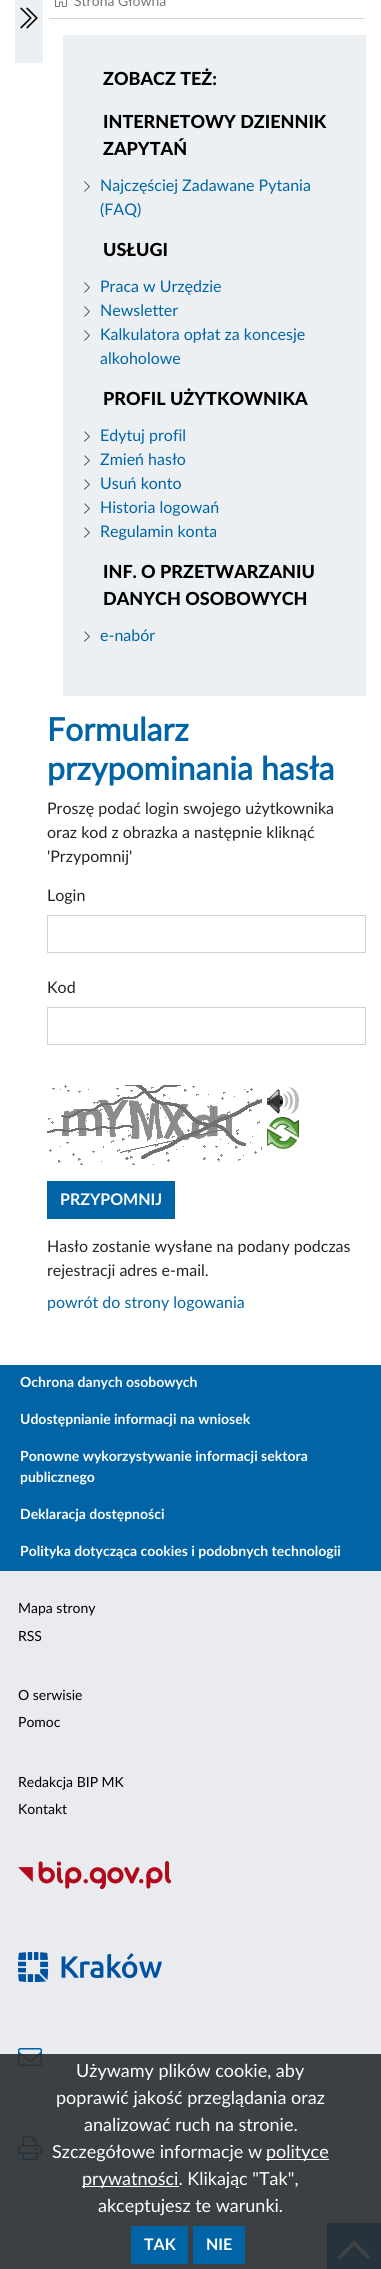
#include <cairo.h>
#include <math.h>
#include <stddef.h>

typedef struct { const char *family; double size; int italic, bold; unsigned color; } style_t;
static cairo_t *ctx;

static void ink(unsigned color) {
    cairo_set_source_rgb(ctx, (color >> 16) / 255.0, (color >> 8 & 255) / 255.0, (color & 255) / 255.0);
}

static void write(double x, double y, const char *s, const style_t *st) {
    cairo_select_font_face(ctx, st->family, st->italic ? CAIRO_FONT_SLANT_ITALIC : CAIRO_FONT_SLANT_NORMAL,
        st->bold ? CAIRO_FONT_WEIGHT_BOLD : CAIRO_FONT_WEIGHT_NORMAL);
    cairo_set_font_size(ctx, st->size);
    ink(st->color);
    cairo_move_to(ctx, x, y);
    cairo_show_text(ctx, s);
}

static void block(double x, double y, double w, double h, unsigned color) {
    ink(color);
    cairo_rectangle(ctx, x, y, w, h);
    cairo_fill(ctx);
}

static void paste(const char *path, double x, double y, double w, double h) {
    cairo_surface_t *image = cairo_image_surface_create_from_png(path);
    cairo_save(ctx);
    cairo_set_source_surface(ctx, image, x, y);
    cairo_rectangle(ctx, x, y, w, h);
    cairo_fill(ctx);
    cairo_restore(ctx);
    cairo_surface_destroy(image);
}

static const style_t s1 = {"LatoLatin", 14, 0, 0, 0x797676};
static const style_t s2 = {"LatoLatin Black", 18, 0, 0, 0x000000};
static const style_t s3 = {"LatoLatin", 16, 0, 0, 0x0064a7};
static const style_t s4 = {"LatoLatin", 32, 0, 1, 0x0064a7};
static const style_t s5 = {"LatoLatin", 16, 0, 0, 0x212529};
static const style_t s6 = {"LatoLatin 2", 16, 0, 1, 0xffffff};
static const style_t s7 = {"LatoLatin 2", 14, 0, 1, 0xffffff};
static const style_t s8 = {"LatoLatin", 14, 0, 0, 0x000000};
static const style_t s9 = {"LatoLatin", 18, 0, 0, 0xffffff};

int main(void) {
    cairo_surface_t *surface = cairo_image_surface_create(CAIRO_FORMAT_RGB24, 381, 2269);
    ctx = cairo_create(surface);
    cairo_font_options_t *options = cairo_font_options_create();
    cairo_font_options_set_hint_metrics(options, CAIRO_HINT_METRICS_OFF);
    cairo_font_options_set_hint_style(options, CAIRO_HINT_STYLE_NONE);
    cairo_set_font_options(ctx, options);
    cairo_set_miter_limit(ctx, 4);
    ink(0xffffff);
    cairo_paint(ctx);
    block(15, 0, 28, 63, 0xecf0f3);
    paste("pic1.png", 20, 7, 18, 22);
    block(49, 18, 315, 1, 0xd4d4d4);
    paste("pic2.png", 55, 0, 12, 7);
    write(74, 6, "Strona Główna", &s1);
    block(63, 35, 303, 661, 0xecf0f3);
    write(103, 85, "ZOBACZ TEŻ:", &s2);
    write(103, 128, "INTERNETOWY DZIENNIK", &s2);
    write(103, 155, "ZAPYTAŃ", &s2);
    paste("pic3.png", 84, 181, 6, 11);
    write(100, 191, "Najczęściej Zadawane Pytania", &s3);
    write(100, 215, "(FAQ)", &s3);
    write(103, 256, "USŁUGI", &s2);
    paste("pic3.png", 84, 282, 6, 11);
    write(100, 292, "Praca w Urzędzie", &s3);
    paste("pic3.png", 84, 306, 6, 11);
    write(100, 316, "Newsletter", &s3);
    paste("pic3.png", 84, 330, 6, 11);
    write(100, 340, "Kalkulatora opłat za koncesje", &s3);
    write(100, 364, "alkoholowe", &s3);
    write(103, 405, "PROFIL UŻYTKOWNIKA", &s2);
    paste("pic3.png", 84, 431, 6, 11);
    write(100, 441, "Edytuj profil", &s3);
    paste("pic3.png", 84, 455, 6, 11);
    write(100, 465, "Zmień hasło", &s3);
    paste("pic3.png", 84, 479, 6, 11);
    write(100, 489, "Usuń konto", &s3);
    paste("pic3.png", 84, 503, 6, 11);
    write(100, 513, "Historia logowań", &s3);
    paste("pic3.png", 84, 527, 6, 11);
    write(100, 537, "Regulamin konta", &s3);
    write(103, 578, "INF. O PRZETWARZANIU", &s2);
    write(103, 605, "DANYCH OSOBOWYCH", &s2);
    paste("pic3.png", 84, 631, 6, 11);
    write(100, 641, "e-nabór", &s3);
    write(47, 741, "Formularz", &s4);
    write(47, 780, "przypominania hasła", &s4);
    write(47, 814, "Proszę podać login swojego użytkownika", &s5);
    write(47, 838, "oraz kod z obrazka a następnie kliknąć", &s5);
    write(47, 862, "'Przypomnij'", &s5);
    write(47, 901, "Login", &s5);
    cairo_rectangle(ctx, 47.5, 915.5, 318, 37);
    ink(0xced4da);
    cairo_set_line_width(ctx, 1);
    cairo_stroke(ctx);
    write(47, 993, "Kod", &s5);
    cairo_rectangle(ctx, 47.5, 1007.5, 318, 37);
    ink(0xced4da);
    cairo_stroke(ctx);
    paste("pic4.png", 47, 1085, 215, 80);
    paste("pic5.png", 267, 1087, 32, 28);
    paste("pic6.png", 267, 1117, 32, 32);
    block(47, 1181, 128, 38, 0x0064a7);
    write(60, 1205, "PRZYPOMNIJ", &s6);
    write(47, 1252, "Hasło zostanie wysłane na podany podczas", &s5);
    write(47, 1276, "rejestracji adres e-mail.", &s5);
    write(47, 1308, "powrót do strony logowania", &s3);
    block(0, 1365, 381, 206, 0x0064a7);
    write(20, 1387, "Ochrona danych osobowych", &s7);
    write(20, 1424, "Udostępnianie informacji na wniosek", &s7);
    write(20, 1461, "Ponowne wykorzystywanie informacji sektora", &s7);
    write(20, 1482, "publicznego", &s7);
    write(20, 1519, "Deklaracja dostępności", &s7);
    write(20, 1556, "Polityka dotycząca cookies i podobnych technologii", &s7);
    block(0, 1571, 381, 698, 0xe9ebee);
    write(18, 1613, "Mapa strony", &s8);
    write(18, 1641, "RSS", &s8);
    write(18, 1700, "O serwisie", &s8);
    write(18, 1727, "Pomoc", &s8);
    write(18, 1787, "Redakcja BIP MK", &s8);
    write(18, 1814, "Kontakt", &s8);
    paste("pic7.png", 18, 1861, 153, 28);
    paste("pic8.png", 18, 1952, 144, 30);
    paste("pic9.png", 18, 2048, 24, 18);
    paste("pic10.png", 18, 2136, 24, 24);
    block(327, 2223, 54, 46, 0x0064a7);
    paste("pic11.png", 337, 2240, 34, 20);
    cairo_set_source_rgba(ctx, 0.165, 0.18, 0.192, 0.9);
    cairo_rectangle(ctx, 0, 2054, 381, 215);
    cairo_fill(ctx);
    write(76, 2077, "Używamy plików cookie, aby", &s9);
    write(56, 2104, "poprawić jakość przeglądania oraz", &s9);
    write(84, 2131, "analizować ruch na stronie.", &s9);
    write(52, 2158, "Szczegółowe informacje w", &s9);
    block(266, 2159, 63, 1, 0xffffff);
    write(266, 2158, "polityce", &s9);
    block(82, 2186, 97, 1, 0xffffff);
    write(82, 2185, "prywatności. Klikając \"Tak\",", &s9);
    write(98, 2212, "akceptujesz te warunki.", &s9);
    block(131, 2226, 57, 38, 0x0064a7);
    write(144, 2250, "TAK", &s6);
    block(193, 2226, 52, 38, 0x0064a7);
    write(206, 2250, "NIE", &s6);
    cairo_surface_write_to_png(surface, "screenshot.png");
    cairo_font_options_destroy(options);
    cairo_destroy(ctx);
    cairo_surface_destroy(surface);
    return 0;
}
